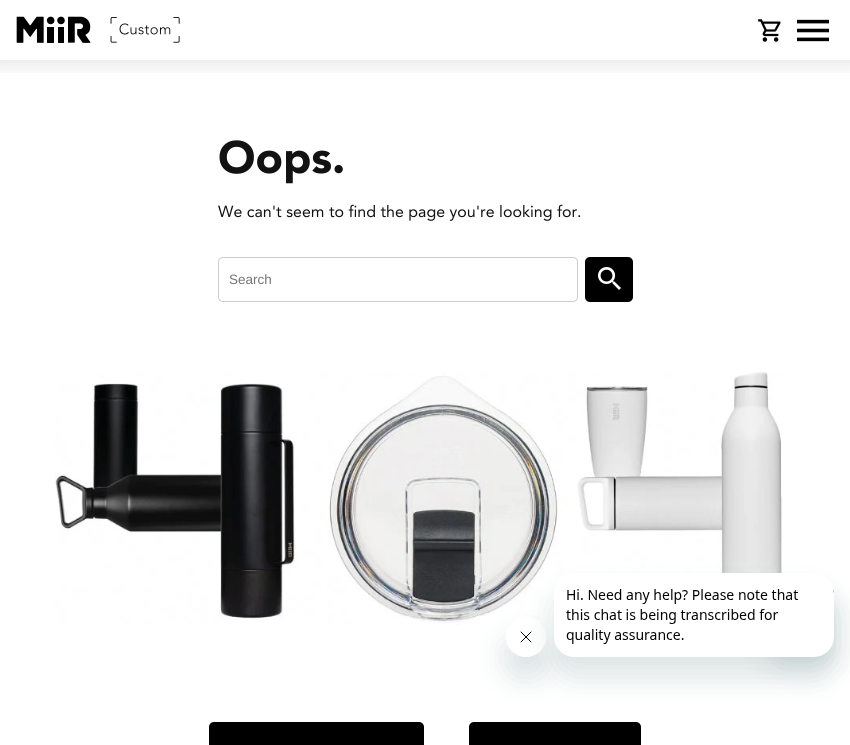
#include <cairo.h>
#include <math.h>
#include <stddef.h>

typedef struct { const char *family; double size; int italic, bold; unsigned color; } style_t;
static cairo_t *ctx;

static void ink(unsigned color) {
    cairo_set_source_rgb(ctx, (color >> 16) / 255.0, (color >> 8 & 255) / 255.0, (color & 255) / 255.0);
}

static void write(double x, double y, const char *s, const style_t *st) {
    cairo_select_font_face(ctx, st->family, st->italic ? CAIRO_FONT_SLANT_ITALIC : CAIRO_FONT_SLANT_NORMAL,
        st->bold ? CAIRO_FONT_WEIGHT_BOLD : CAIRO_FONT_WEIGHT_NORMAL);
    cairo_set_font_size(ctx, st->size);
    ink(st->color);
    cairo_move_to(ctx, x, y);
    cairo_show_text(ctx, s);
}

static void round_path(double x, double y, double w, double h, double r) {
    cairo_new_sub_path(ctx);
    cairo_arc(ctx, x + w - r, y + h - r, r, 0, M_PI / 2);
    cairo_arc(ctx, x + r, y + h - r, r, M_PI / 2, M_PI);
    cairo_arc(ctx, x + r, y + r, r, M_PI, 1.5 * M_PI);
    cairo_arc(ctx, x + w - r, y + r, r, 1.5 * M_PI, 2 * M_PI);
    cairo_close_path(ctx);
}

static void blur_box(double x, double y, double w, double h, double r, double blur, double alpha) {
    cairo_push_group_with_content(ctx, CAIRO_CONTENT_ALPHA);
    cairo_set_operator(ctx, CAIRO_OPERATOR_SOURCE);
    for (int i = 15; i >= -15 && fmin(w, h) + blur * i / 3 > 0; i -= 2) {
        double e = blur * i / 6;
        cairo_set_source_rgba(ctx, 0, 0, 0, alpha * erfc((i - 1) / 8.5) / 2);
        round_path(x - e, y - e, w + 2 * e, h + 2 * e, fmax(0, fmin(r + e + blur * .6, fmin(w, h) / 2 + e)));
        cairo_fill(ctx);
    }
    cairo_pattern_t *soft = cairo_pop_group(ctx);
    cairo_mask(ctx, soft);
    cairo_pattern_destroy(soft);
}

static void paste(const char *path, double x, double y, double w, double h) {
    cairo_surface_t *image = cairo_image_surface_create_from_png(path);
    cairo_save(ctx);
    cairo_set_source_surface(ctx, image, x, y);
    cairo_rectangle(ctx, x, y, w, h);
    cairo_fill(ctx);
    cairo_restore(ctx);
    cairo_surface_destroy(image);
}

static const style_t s1 = {"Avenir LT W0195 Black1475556 Black", 45, 0, 0, 0x121212};
static const style_t s2 = {"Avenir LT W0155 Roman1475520", 16, 0, 0, 0x121212};
static const style_t s3 = {"Liberation Sans", 13.5, 0, 0, 0x757575};

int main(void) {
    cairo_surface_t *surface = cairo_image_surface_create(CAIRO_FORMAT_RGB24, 850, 745);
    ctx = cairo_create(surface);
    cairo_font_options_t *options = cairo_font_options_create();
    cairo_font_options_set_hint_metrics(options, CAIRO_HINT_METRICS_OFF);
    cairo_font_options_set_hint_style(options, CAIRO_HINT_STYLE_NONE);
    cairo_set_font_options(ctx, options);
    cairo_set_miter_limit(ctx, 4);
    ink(0xffffff);
    cairo_paint(ctx);
    cairo_save(ctx);
    cairo_rectangle(ctx, 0, 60, 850, 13);
    cairo_clip(ctx);
    ink(0x000000);
    blur_box(-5, -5, 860, 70, 0, 10, 0.1);
    cairo_restore(ctx);
    paste("pic1.png", 16, 16, 164, 27);
    paste("pic2.png", 758, 19, 23, 23);
    paste("pic3.png", 797, 19, 32, 23);
    write(218, 173, "Oops.", &s1);
    write(218, 217, "We can't seem to find the page you're looking for.", &s2);
    round_path(218.5, 257.5, 359, 44, 4.5);
    ink(0xcecece);
    cairo_set_line_width(ctx, 1);
    cairo_stroke(ctx);
    write(229, 284, "Search", &s3);
    ink(0x000000);
    round_path(585, 257, 48, 45, 5);
    cairo_fill(ctx);
    paste("pic4.png", 598, 267, 23, 23);
    paste("pic5.png", 54, 372, 728, 253);
    round_path(209, 722, 215, 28, 5);
    cairo_fill(ctx);
    round_path(469, 722, 172, 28, 5);
    cairo_fill(ctx);
    cairo_save(ctx);
    cairo_set_fill_rule(ctx, CAIRO_FILL_RULE_EVEN_ODD);
    cairo_new_path(ctx);
    cairo_move_to(ctx, 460, 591);
    cairo_line_to(ctx, 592, 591);
    cairo_line_to(ctx, 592, 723);
    cairo_line_to(ctx, 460, 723);
    cairo_close_path(ctx);
    cairo_move_to(ctx, 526, 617);
    cairo_curve_to(ctx, 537, 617, 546, 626, 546, 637);
    cairo_curve_to(ctx, 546, 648, 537, 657, 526, 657);
    cairo_curve_to(ctx, 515, 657, 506, 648, 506, 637);
    cairo_curve_to(ctx, 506, 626, 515, 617, 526, 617);
    cairo_close_path(ctx);
    cairo_clip(ctx);
    ink(0x17494d);
    blur_box(506, 637, 40, 40, 20, 15, 0.15);
    cairo_restore(ctx);
    paste("pic7.png", 520, 631, 12, 12);
    ink(0x17494d);
    blur_box(770, 601, 64, 64, 14, 15, 0.15);
    paste("pic8.png", 833, 589, 1, 4);
    blur_box(554, 593, 280, 84, 20, 15, 0.15);
    paste("pic6.png", 554, 573, 280, 84);
    cairo_surface_write_to_png(surface, "screenshot.png");
    cairo_font_options_destroy(options);
    cairo_destroy(ctx);
    cairo_surface_destroy(surface);
    return 0;
}
